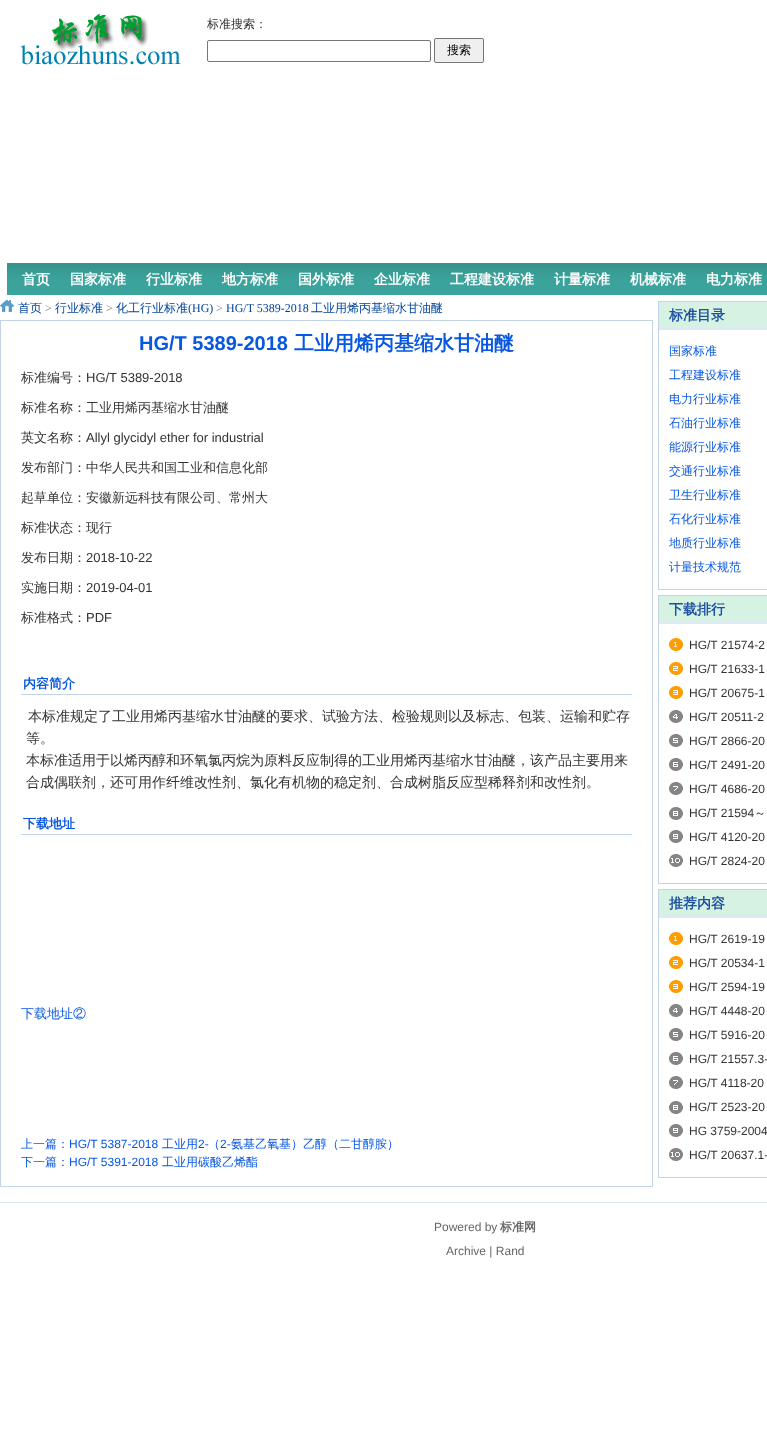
async function draw(canvas) {
  canvas.width = 767
  canvas.height = 1434
  const ctx = canvas.getContext('2d')
  ctx.miterLimit = 4
  ctx.fontKerning = 'normal'
  async function loadImage(src) {
    const img = new Image()
    img.src = src
    await img.decode()
    return img
  }

  ctx.fillStyle = '#fff'
  ctx.fillRect(0, 0, 767, 1434)
  ctx.drawImage(await loadImage('image0.png'), 20, 14, 161, 51)
  ctx.font = '500 12px WenQuanYi Zen Hei'
  ctx.fillStyle = '#333'
  ctx.fillText('标准搜索：', 207, 28)
  ctx.beginPath()
  ctx.roundRect(207.5, 40.5, 223, 21, 1.5)
  ctx.strokeStyle = '#767676'
  ctx.stroke()
  ctx.fillStyle = '#efefef'
  ctx.beginPath()
  ctx.roundRect(434.5, 38.5, 49, 24, 1.5)
  ctx.fill()
  ctx.stroke()
  ctx.fillStyle = '#000'
  ctx.fillText('搜索', 447, 54)
  ctx.drawImage(await loadImage('image1.png'), 7, 263, 760, 32)
  ctx.font = 'bold 14px WenQuanYi Zen Hei'
  ctx.fillStyle = '#fff'
  ctx.fillText('首页', 22, 284)
  ctx.fillText('国家标准', 70, 284)
  ctx.fillText('行业标准', 146, 284)
  ctx.fillText('地方标准', 222, 284)
  ctx.fillText('国外标准', 298, 284)
  ctx.fillText('企业标准', 374, 284)
  ctx.fillText('工程建设标准', 450, 284)
  ctx.fillText('计量标准', 554, 284)
  ctx.fillText('机械标准', 630, 284)
  ctx.fillText('电力标准', 706, 284)
  ctx.drawImage(await loadImage('image2.png'), 0, 300, 14, 12)
  ctx.font = '500 12px WenQuanYi Zen Hei'
  ctx.fillStyle = '#049'
  ctx.fillText('首页', 18, 312)
  ctx.font = '12px Liberation Serif'
  ctx.fillStyle = '#7e7e7e'
  ctx.fillText('>', 45, 312)
  ctx.font = '500 12px WenQuanYi Zen Hei'
  ctx.fillStyle = '#049'
  ctx.fillText('行业标准', 55, 312)
  ctx.font = '12px Liberation Serif'
  ctx.fillStyle = '#7e7e7e'
  ctx.fillText('>', 106, 312)
  ctx.font = '500 12px WenQuanYi Zen Hei'
  ctx.fillStyle = '#049'
  ctx.fillText('化工行业标准', 116, 312)
  ctx.font = '12px Liberation Serif'
  ctx.fillText('(HG)', 188, 312)
  ctx.fillStyle = '#7e7e7e'
  ctx.fillText('>', 216, 312)
  ctx.fillStyle = '#049'
  ctx.fillText('HG/T 5389-2018', 226, 312)
  ctx.font = '500 12px WenQuanYi Zen Hei'
  ctx.fillText('工业用烯丙基缩水甘油醚', 311, 312)
  ctx.strokeStyle = '#c3d4e7'
  ctx.strokeRect(0.5, 320.5, 652, 866)
  ctx.font = 'bold 20px Liberation Sans'
  ctx.fillStyle = '#0757e2'
  ctx.fillText('HG/T 5389-2018', 139, 350)
  ctx.font = 'bold 20px WenQuanYi Zen Hei'
  ctx.fillText('工业用烯丙基缩水甘油醚', 294, 350)
  ctx.font = '500 13px WenQuanYi Zen Hei'
  ctx.fillStyle = '#333'
  ctx.fillText('标准编号：', 21, 382)
  ctx.font = '13px Liberation Sans'
  ctx.fillText('HG/T 5389-2018', 86, 382)
  ctx.font = '500 13px WenQuanYi Zen Hei'
  ctx.fillText('标准名称：工业用烯丙基缩水甘油醚', 21, 412)
  ctx.fillText('英文名称：', 21, 442)
  ctx.font = '13px Liberation Sans'
  ctx.fillText('Allyl glycidyl ether for industrial', 86, 442)
  ctx.font = '500 13px WenQuanYi Zen Hei'
  ctx.fillText('发布部门：中华人民共和国工业和信息化部', 21, 472)
  ctx.fillText('起草单位：安徽新远科技有限公司、常州大', 21, 502)
  ctx.fillText('标准状态：现行', 21, 532)
  ctx.fillText('发布日期：', 21, 562)
  ctx.font = '13px Liberation Sans'
  ctx.fillText('2018-10-22', 86, 562)
  ctx.font = '500 13px WenQuanYi Zen Hei'
  ctx.fillText('实施日期：', 21, 592)
  ctx.font = '13px Liberation Sans'
  ctx.fillText('2019-04-01', 86, 592)
  ctx.font = '500 13px WenQuanYi Zen Hei'
  ctx.fillText('标准格式：', 21, 622)
  ctx.font = '13px Liberation Sans'
  ctx.fillText('PDF', 86, 622)
  ctx.fillStyle = '#c3d4e7'
  ctx.fillRect(21, 694, 611, 1)
  ctx.font = 'bold 13px WenQuanYi Zen Hei'
  ctx.fillStyle = '#0757e2'
  ctx.fillText('内容简介', 23, 688)
  ctx.font = '500 14px WenQuanYi Zen Hei'
  ctx.fillStyle = '#333'
  ctx.fillText('本标准规定了工业用烯丙基缩水甘油醚的要求、试验方法、检验规则以及标志、包装、运输和贮存', 28, 721)
  ctx.fillText('等。', 26, 743)
  ctx.fillText('本标准适用于以烯丙醇和环氧氯丙烷为原料反应制得的工业用烯丙基缩水甘油醚，该产品主要用来', 26, 765)
  ctx.fillText('合成偶联剂，还可用作纤维改性剂、氯化有机物的稳定剂、合成树脂反应型稀释剂和改性剂。', 26, 787)
  ctx.fillStyle = '#c3d4e7'
  ctx.fillRect(21, 834, 611, 1)
  ctx.font = 'bold 13px WenQuanYi Zen Hei'
  ctx.fillStyle = '#0757e2'
  ctx.fillText('下载地址', 23, 828)
  ctx.font = '500 13px WenQuanYi Zen Hei'
  ctx.fillText('下载地址②', 21, 1018)
  ctx.font = '500 12px WenQuanYi Zen Hei'
  ctx.fillText('上一篇：', 21, 1148)
  ctx.font = '12px Liberation Sans'
  ctx.fillText('HG/T 5387-2018', 69, 1148)
  ctx.font = '500 12px WenQuanYi Zen Hei'
  ctx.fillText('工业用', 162, 1148)
  ctx.font = '12px Liberation Sans'
  ctx.fillText('2-', 198, 1148)
  ctx.font = '500 12px WenQuanYi Zen Hei'
  ctx.fillText('（', 208, 1148)
  ctx.font = '12px Liberation Sans'
  ctx.fillText('2-', 220, 1148)
  ctx.font = '500 12px WenQuanYi Zen Hei'
  ctx.fillText('氨基乙氧基）乙醇（二甘醇胺）', 231, 1148)
  ctx.fillText('下一篇：', 21, 1166)
  ctx.font = '12px Liberation Sans'
  ctx.fillText('HG/T 5391-2018', 69, 1166)
  ctx.font = '500 12px WenQuanYi Zen Hei'
  ctx.fillText('工业用碳酸乙烯酯', 162, 1166)
  ctx.fillStyle = '#d6f2e3'
  ctx.fillRect(659, 302, 108, 28)
  ctx.strokeRect(658.5, 301.5, 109, 288)
  ctx.fillStyle = '#dce7f3'
  ctx.fillRect(659, 328, 108, 1)
  ctx.font = 'bold 14px WenQuanYi Zen Hei'
  ctx.fillStyle = '#1e50a2'
  ctx.fillText('标准目录', 669, 320)
  ctx.font = '500 12px WenQuanYi Zen Hei'
  ctx.fillStyle = '#0757e2'
  ctx.fillText('国家标准', 669, 355)
  ctx.fillText('工程建设标准', 669, 379)
  ctx.fillText('电力行业标准', 669, 403)
  ctx.fillText('石油行业标准', 669, 427)
  ctx.fillText('能源行业标准', 669, 451)
  ctx.fillText('交通行业标准', 669, 475)
  ctx.fillText('卫生行业标准', 669, 499)
  ctx.fillText('石化行业标准', 669, 523)
  ctx.fillText('地质行业标准', 669, 547)
  ctx.fillText('计量技术规范', 669, 571)
  ctx.fillStyle = '#d6f2e3'
  ctx.fillRect(659, 596, 108, 28)
  ctx.strokeRect(658.5, 595.5, 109, 288)
  ctx.fillStyle = '#dce7f3'
  ctx.fillRect(659, 622, 108, 1)
  ctx.font = 'bold 14px WenQuanYi Zen Hei'
  ctx.fillStyle = '#1e50a2'
  ctx.fillText('下载排行', 669, 614)
  ctx.drawImage(await loadImage('image3.png'), 669, 638, 14, 229)
  ctx.font = '12px Liberation Sans'
  ctx.fillStyle = '#333'
  ctx.fillText('HG/T 21574-2', 689, 649)
  ctx.fillText('HG/T 21633-1', 689, 673)
  ctx.fillText('HG/T 20675-1', 689, 697)
  ctx.fillText('HG/T 20511-2', 689, 721)
  ctx.fillText('HG/T 2866-20', 689, 745)
  ctx.fillText('HG/T 2491-20', 689, 769)
  ctx.fillText('HG/T 4686-20', 689, 793)
  ctx.fillText('HG/T 21594', 689, 817)
  ctx.font = '500 12px WenQuanYi Zen Hei'
  ctx.fillText('～', 754, 817)
  ctx.font = '12px Liberation Sans'
  ctx.fillText('HG/T 4120-20', 689, 841)
  ctx.fillText('HG/T 2824-20', 689, 865)
  ctx.fillStyle = '#d6f2e3'
  ctx.fillRect(659, 890, 108, 28)
  ctx.strokeRect(658.5, 889.5, 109, 288)
  ctx.fillStyle = '#dce7f3'
  ctx.fillRect(659, 916, 108, 1)
  ctx.font = 'bold 14px WenQuanYi Zen Hei'
  ctx.fillStyle = '#1e50a2'
  ctx.fillText('推荐内容', 669, 908)
  ctx.drawImage(await loadImage('image3.png'), 669, 932, 14, 229)
  ctx.font = '12px Liberation Sans'
  ctx.fillStyle = '#333'
  ctx.fillText('HG/T 2619-19', 689, 943)
  ctx.fillText('HG/T 20534-1', 689, 967)
  ctx.fillText('HG/T 2594-19', 689, 991)
  ctx.fillText('HG/T 4448-20', 689, 1015)
  ctx.fillText('HG/T 5916-20', 689, 1039)
  ctx.fillText('HG/T 21557.3-', 689, 1063)
  ctx.fillText('HG/T 4118-20', 689, 1087)
  ctx.fillText('HG/T 2523-20', 689, 1111)
  ctx.fillText('HG 3759-2004', 689, 1135)
  ctx.fillText('HG/T 20637.1-', 689, 1159)
  ctx.fillStyle = '#dbe7ed'
  ctx.fillRect(0, 1202, 767, 1)
  ctx.fillStyle = '#666'
  ctx.fillText('Powered by', 434, 1231)
  ctx.font = 'bold 12px WenQuanYi Zen Hei'
  ctx.fillText('标准网', 500, 1231)
  ctx.font = '12px Liberation Sans'
  ctx.fillText('Archive | Rand', 446, 1255)
}

draw(document.querySelector('canvas'))
